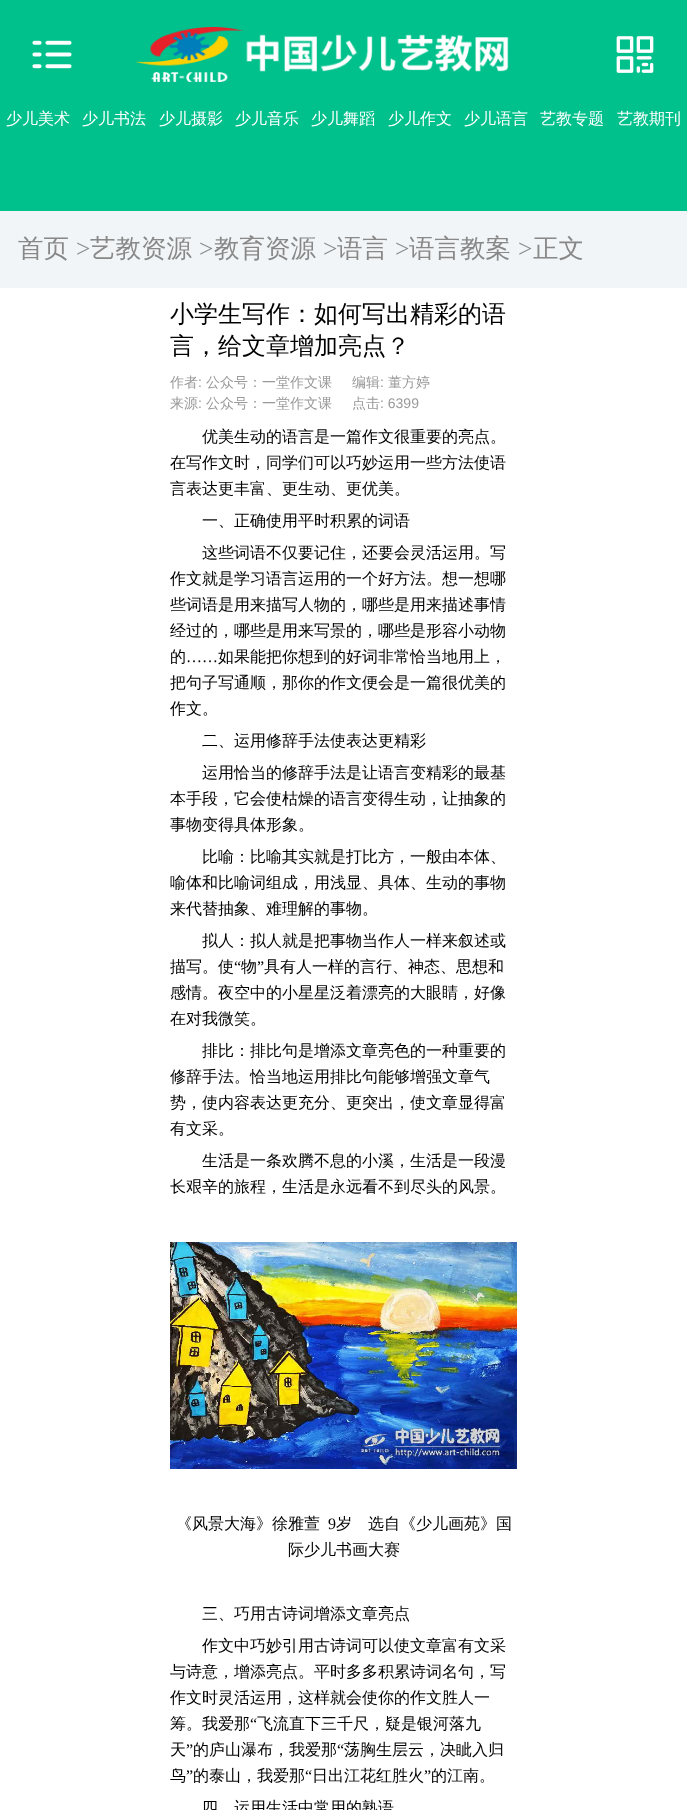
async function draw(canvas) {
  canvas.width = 687
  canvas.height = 1810
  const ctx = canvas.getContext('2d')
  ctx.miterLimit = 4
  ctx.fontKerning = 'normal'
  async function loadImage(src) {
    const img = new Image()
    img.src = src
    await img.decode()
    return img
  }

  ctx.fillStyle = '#fff'
  ctx.fillRect(0, 0, 687, 1810)
  ctx.fillStyle = '#00c18c'
  ctx.fillRect(0, 0, 687, 211)
  ctx.drawImage(await loadImage('image0.png'), 32, 40, 40, 29)
  ctx.drawImage(await loadImage('image1.png'), 135, 27, 374, 55)
  ctx.drawImage(await loadImage('image2.png'), 616, 36, 38, 37)
  ctx.font = '500 16px WenQuanYi Zen Hei'
  ctx.fillStyle = '#fff'
  ctx.fillText('少儿美术', 6, 124)
  ctx.fillText('少儿书法', 82, 124)
  ctx.fillText('少儿摄影', 159, 124)
  ctx.fillText('少儿音乐', 235, 124)
  ctx.fillText('少儿舞蹈', 311, 124)
  ctx.fillText('少儿作文', 388, 124)
  ctx.fillText('少儿语言', 464, 124)
  ctx.fillText('艺教专题', 540, 124)
  ctx.fillText('艺教期刊', 617, 124)
  ctx.fillStyle = '#f1f5f7'
  ctx.fillRect(0, 211, 687, 77)
  ctx.font = '500 25.5px WenQuanYi Zen Hei'
  ctx.fillStyle = '#888'
  ctx.fillText('首页', 18, 257)
  ctx.font = '25.5px Liberation Serif'
  ctx.fillText('>', 76, 257)
  ctx.font = '500 25.5px WenQuanYi Zen Hei'
  ctx.fillText('艺教资源', 90, 257)
  ctx.font = '25.5px Liberation Serif'
  ctx.fillText('>', 199, 257)
  ctx.font = '500 25.5px WenQuanYi Zen Hei'
  ctx.fillText('教育资源', 214, 257)
  ctx.font = '25.5px Liberation Serif'
  ctx.fillText('>', 323, 257)
  ctx.font = '500 25.5px WenQuanYi Zen Hei'
  ctx.fillText('语言', 337, 257)
  ctx.font = '25.5px Liberation Serif'
  ctx.fillText('>', 395, 257)
  ctx.font = '500 25.5px WenQuanYi Zen Hei'
  ctx.fillText('语言教案', 409, 257)
  ctx.font = '25.5px Liberation Serif'
  ctx.fillText('>', 518, 257)
  ctx.font = '500 25.5px WenQuanYi Zen Hei'
  ctx.fillText('正文', 533, 257)
  ctx.font = '500 24px WenQuanYi Zen Hei'
  ctx.fillStyle = '#000'
  ctx.fillText('小学生写作：如何写出精彩的语', 170, 322)
  ctx.fillText('言，给文章增加亮点？', 170, 354)
  ctx.font = '500 14px WenQuanYi Zen Hei'
  ctx.fillStyle = '#999'
  ctx.fillText('作者', 170, 387)
  ctx.font = '14px Liberation Sans'
  ctx.fillText(':', 198, 387)
  ctx.font = '500 14px WenQuanYi Zen Hei'
  ctx.fillText('公众号：一堂作文课', 206, 387)
  ctx.fillText('编辑', 352, 387)
  ctx.font = '14px Liberation Sans'
  ctx.fillText(':', 380, 387)
  ctx.font = '500 14px WenQuanYi Zen Hei'
  ctx.fillText('董方婷', 388, 387)
  ctx.fillText('来源', 170, 408)
  ctx.font = '14px Liberation Sans'
  ctx.fillText(':', 198, 408)
  ctx.font = '500 14px WenQuanYi Zen Hei'
  ctx.fillText('公众号：一堂作文课', 206, 408)
  ctx.fillText('点击', 352, 408)
  ctx.font = '14px Liberation Sans'
  ctx.fillText(': 6399', 380, 408)
  ctx.font = '500 16px WenQuanYi Zen Hei'
  ctx.fillStyle = '#000'
  ctx.fillText('优美生动的语言是一篇作文很重要的亮点。', 202, 442)
  ctx.fillText('在写作文时，同学们可以巧妙运用一些方法使语', 170, 468)
  ctx.fillText('言表达更丰富、更生动、更优美。', 170, 494)
  ctx.fillText('一、正确使用平时积累的词语', 202, 526)
  ctx.fillText('这些词语不仅要记住，还要会灵活运用。写', 202, 558)
  ctx.fillText('作文就是学习语言运用的一个好方法。想一想哪', 170, 584)
  ctx.fillText('些词语是用来描写人物的，哪些是用来描述事情', 170, 610)
  ctx.fillText('经过的，哪些是用来写景的，哪些是形容小动物', 170, 636)
  ctx.fillText('的', 170, 662)
  ctx.font = '16px Liberation Serif'
  ctx.fillText('……', 186, 662)
  ctx.font = '500 16px WenQuanYi Zen Hei'
  ctx.fillText('如果能把你想到的好词非常恰当地用上，', 218, 662)
  ctx.fillText('把句子写通顺，那你的作文便会是一篇很优美的', 170, 688)
  ctx.fillText('作文。', 170, 714)
  ctx.fillText('二、运用修辞手法使表达更精彩', 202, 746)
  ctx.fillText('运用恰当的修辞手法是让语言变精彩的最基', 202, 778)
  ctx.fillText('本手段，它会使枯燥的语言变得生动，让抽象的', 170, 804)
  ctx.fillText('事物变得具体形象。', 170, 830)
  ctx.fillText('比喻：比喻其实就是打比方，一般由本体、', 202, 862)
  ctx.fillText('喻体和比喻词组成，用浅显、具体、生动的事物', 170, 888)
  ctx.fillText('来代替抽象、难理解的事物。', 170, 914)
  ctx.fillText('拟人：拟人就是把事物当作人一样来叙述或', 202, 946)
  ctx.fillText('描写。使', 170, 972)
  ctx.font = '16px Liberation Serif'
  ctx.fillText('“', 234, 972)
  ctx.font = '500 16px WenQuanYi Zen Hei'
  ctx.fillText('物', 241, 972)
  ctx.font = '16px Liberation Serif'
  ctx.fillText('”', 257, 972)
  ctx.font = '500 16px WenQuanYi Zen Hei'
  ctx.fillText('具有人一样的言行、神态、思想和', 264, 972)
  ctx.fillText('感情。夜空中的小星星泛着漂亮的大眼睛，好像', 170, 998)
  ctx.fillText('在对我微笑。', 170, 1024)
  ctx.fillText('排比：排比句是增添文章亮色的一种重要的', 202, 1056)
  ctx.fillText('修辞手法。恰当地运用排比句能够增强文章气', 170, 1082)
  ctx.fillText('势，使内容表达更充分、更突出，使文章显得富', 170, 1108)
  ctx.fillText('有文采。', 170, 1134)
  ctx.fillText('生活是一条欢腾不息的小溪，生活是一段漫', 202, 1166)
  ctx.fillText('长艰辛的旅程，生活是永远看不到尽头的风景。', 170, 1192)
  ctx.drawImage(await loadImage('image3.png'), 170, 1242, 347, 227)
  ctx.fillText('《风景大海》徐雅萱', 176, 1529)
  ctx.font = '16px Liberation Serif'
  ctx.fillText('9', 328, 1529)
  ctx.font = '500 16px WenQuanYi Zen Hei'
  ctx.fillText('岁', 336, 1529)
  ctx.fillText('选自《少儿画苑》国', 368, 1529)
  ctx.fillText('际少儿书画大赛', 288, 1555)
  ctx.fillText('三、巧用古诗词增添文章亮点', 202, 1619)
  ctx.fillText('作文中巧妙引用古诗词可以使文章富有文采', 202, 1651)
  ctx.fillText('与诗意，增添亮点。平时多多积累诗词名句，写', 170, 1677)
  ctx.fillText('作文时灵活运用，这样就会使你的作文胜人一', 170, 1703)
  ctx.fillText('筹。我爱那', 170, 1729)
  ctx.font = '16px Liberation Serif'
  ctx.fillText('“', 250, 1729)
  ctx.font = '500 16px WenQuanYi Zen Hei'
  ctx.fillText('飞流直下三千尺，疑是银河落九', 257, 1729)
  ctx.fillText('天', 170, 1755)
  ctx.font = '16px Liberation Serif'
  ctx.fillText('”', 186, 1755)
  ctx.font = '500 16px WenQuanYi Zen Hei'
  ctx.fillText('的庐山瀑布，我爱那', 193, 1755)
  ctx.font = '16px Liberation Serif'
  ctx.fillText('“', 337, 1755)
  ctx.font = '500 16px WenQuanYi Zen Hei'
  ctx.fillText('荡胸生层云，决眦入归', 344, 1755)
  ctx.fillText('鸟', 170, 1781)
  ctx.font = '16px Liberation Serif'
  ctx.fillText('”', 186, 1781)
  ctx.font = '500 16px WenQuanYi Zen Hei'
  ctx.fillText('的泰山，我爱那', 193, 1781)
  ctx.font = '16px Liberation Serif'
  ctx.fillText('“', 305, 1781)
  ctx.font = '500 16px WenQuanYi Zen Hei'
  ctx.fillText('日出江花红胜火', 312, 1781)
  ctx.font = '16px Liberation Serif'
  ctx.fillText('”', 424, 1781)
  ctx.font = '500 16px WenQuanYi Zen Hei'
  ctx.fillText('的江南。', 431, 1781)
  ctx.fillText('四、运用生活中常用的熟语', 202, 1813)
}

draw(document.querySelector('canvas'))
